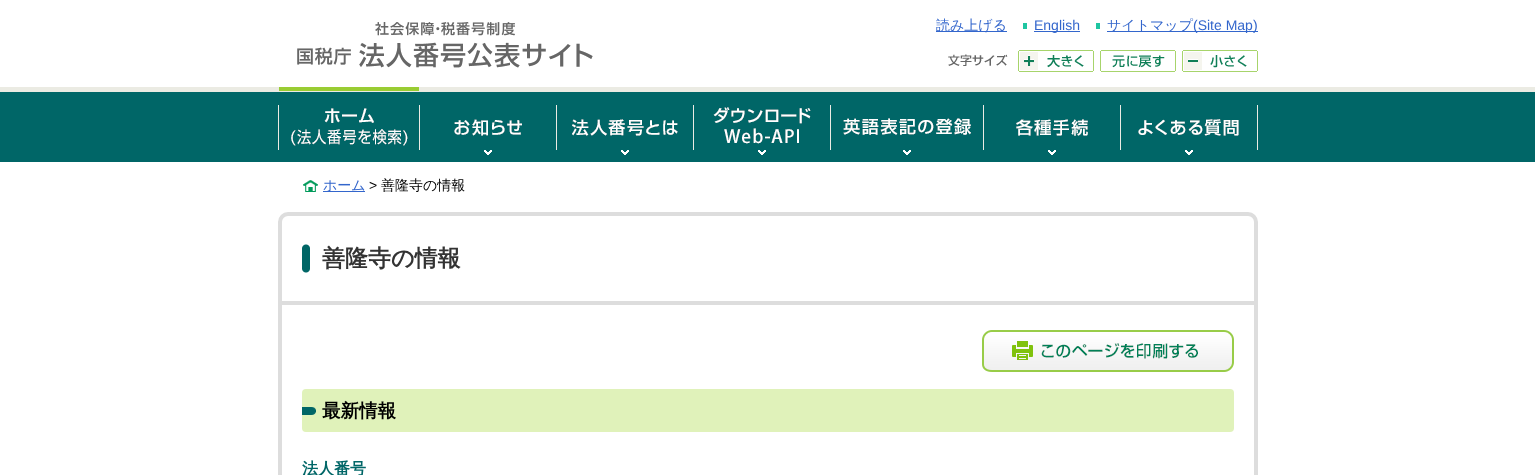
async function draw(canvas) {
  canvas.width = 1535
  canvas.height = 475
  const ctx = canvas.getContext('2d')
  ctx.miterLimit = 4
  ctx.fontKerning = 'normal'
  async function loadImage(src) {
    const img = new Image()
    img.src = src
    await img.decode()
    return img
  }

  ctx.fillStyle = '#fff'
  ctx.fillRect(0, 0, 1535, 475)
  ctx.drawImage(await loadImage('image0.png'), 297, 22, 296, 46)
  ctx.fillStyle = '#36c'
  ctx.fillRect(936, 31, 71, 1)
  ctx.font = '500 14px WenQuanYi Zen Hei'
  ctx.fillText('読み上げる', 936, 30)
  ctx.fillStyle = '#1ec5a1'
  ctx.fillRect(1023, 23, 4, 6)
  ctx.fillStyle = '#36c'
  ctx.fillRect(1034, 31, 46, 1)
  ctx.font = '14px Liberation Sans'
  ctx.fillText('English', 1034, 30)
  ctx.fillStyle = '#1ec5a1'
  ctx.fillRect(1096, 23, 4, 6)
  ctx.fillStyle = '#36c'
  ctx.fillRect(1107, 31, 151, 1)
  ctx.font = '500 14px WenQuanYi Zen Hei'
  ctx.fillText('サイトマップ', 1107, 30)
  ctx.font = '14px Liberation Sans'
  ctx.fillText('(Site Map)', 1193, 30)
  ctx.drawImage(await loadImage('image1.png'), 948, 54, 60, 12)
  ctx.drawImage(await loadImage('image2.png'), 1018, 50, 76, 22)
  ctx.drawImage(await loadImage('image3.png'), 1100, 50, 76, 22)
  ctx.drawImage(await loadImage('image4.png'), 1182, 50, 76, 22)
  ctx.fillStyle = '#006667'
  ctx.fillRect(0, 92, 1535, 70)
  ctx.fillStyle = '#ebebe3'
  ctx.fillRect(0, 87, 1535, 5)
  ctx.fillStyle = '#ebebe4'
  ctx.fillRect(1257, 105, 1, 45)
  ctx.fillRect(278, 105, 1, 45)
  ctx.fillStyle = '#9c3'
  ctx.fillRect(279, 87, 140, 4)
  ctx.drawImage(await loadImage('image5.png'), 279, 105, 129, 45)
  ctx.fillStyle = '#ebebe4'
  ctx.fillRect(419, 105, 1, 45)
  ctx.drawImage(await loadImage('image6.png'), 420, 105, 102, 50)
  ctx.fillRect(556, 105, 1, 45)
  ctx.drawImage(await loadImage('image7.png'), 557, 105, 121, 50)
  ctx.fillRect(693, 105, 1, 45)
  ctx.drawImage(await loadImage('image8.png'), 694, 105, 117, 50)
  ctx.fillRect(830, 105, 1, 45)
  ctx.drawImage(await loadImage('image9.png'), 831, 105, 140, 50)
  ctx.fillRect(983, 105, 1, 45)
  ctx.drawImage(await loadImage('image10.png'), 984, 105, 104, 50)
  ctx.fillRect(1120, 105, 1, 45)
  ctx.drawImage(await loadImage('image11.png'), 1121, 105, 118, 50)
  ctx.drawImage(await loadImage('image12.png'), 303, 180, 15, 12)
  ctx.fillStyle = '#36c'
  ctx.fillRect(323, 191, 42, 1)
  ctx.font = '500 14px WenQuanYi Zen Hei'
  ctx.fillText('ホーム', 323, 190)
  ctx.font = '14px Liberation Sans'
  ctx.fillStyle = '#000'
  ctx.fillText('>', 369, 190)
  ctx.font = '500 14px WenQuanYi Zen Hei'
  ctx.fillText('善隆寺の情報', 381, 190)
  ctx.beginPath()
  ctx.roundRect(280, 214, 976, 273, 8)
  ctx.strokeStyle = '#ddd'
  ctx.lineWidth = 4
  ctx.stroke()
  ctx.drawImage(await loadImage('image13.png'), 302, 244, 8, 29)
  ctx.fillStyle = '#ddd'
  ctx.fillRect(282, 301, 972, 4)
  ctx.font = 'bold 23px WenQuanYi Zen Hei'
  ctx.fillStyle = '#333'
  ctx.fillText('善隆寺の情報', 322, 266)
  ctx.drawImage(await loadImage('image14.png'), 982, 330, 252, 42)
  ctx.fillStyle = '#e0f2ba'
  ctx.beginPath()
  ctx.roundRect(302, 389, 932, 43, 4)
  ctx.fill()
  ctx.drawImage(await loadImage('image15.png'), 302, 407, 14, 8)
  ctx.font = 'bold 18.5px WenQuanYi Zen Hei'
  ctx.fillStyle = '#000'
  ctx.fillText('最新情報', 322, 417)
  ctx.font = 'bold 16px WenQuanYi Zen Hei'
  ctx.fillStyle = '#006667'
  ctx.fillText('法人番号', 302, 474)
}

draw(document.querySelector('canvas'))
